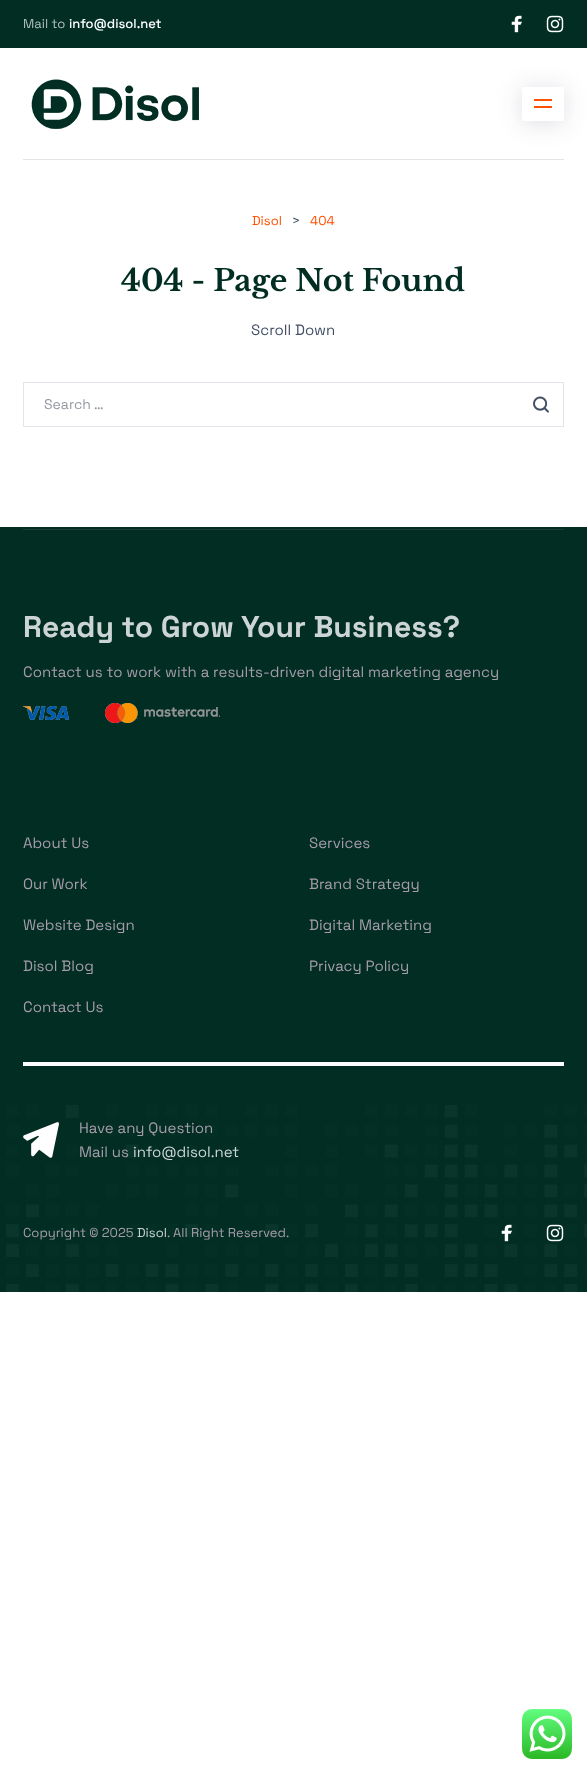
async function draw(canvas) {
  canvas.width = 587
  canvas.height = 1774
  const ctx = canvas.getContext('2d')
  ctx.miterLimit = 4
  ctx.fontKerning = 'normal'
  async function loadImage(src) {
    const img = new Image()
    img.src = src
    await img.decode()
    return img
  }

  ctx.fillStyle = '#fff'
  ctx.fillRect(0, 0, 587, 1774)
  ctx.fillStyle = '#012d22'
  ctx.fillRect(0, 0, 587, 48)
  ctx.font = '13px Space Grotesk'
  ctx.fillStyle = '#b3c0bd'
  ctx.fillText('Mail to', 23, 28)
  ctx.font = '500 13px Space Grotesk'
  ctx.fillStyle = '#fff'
  ctx.fillText('info@disol.net', 69, 28)
  ctx.drawImage(await loadImage('image0.png'), 511, 15, 11, 18)
  ctx.drawImage(await loadImage('image1.png'), 546, 15, 18, 18)
  ctx.drawImage(await loadImage('image2.png'), 31, 79, 168, 50)
  ctx.fillStyle = '#e1e6e4'
  ctx.fillRect(23, 159, 541, 1)
  ctx.save()
  ctx.beginPath()
  ctx.moveTo(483, 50)
  ctx.lineTo(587, 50)
  ctx.lineTo(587, 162)
  ctx.lineTo(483, 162)
  ctx.closePath()
  ctx.moveTo(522, 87)
  ctx.lineTo(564, 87)
  ctx.lineTo(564, 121)
  ctx.lineTo(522, 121)
  ctx.closePath()
  ctx.clip('evenodd')
  ctx.fillStyle = '#111a4526'
  ctx.filter = 'blur(12.5px)'
  ctx.beginPath()
  ctx.rect(522, 89, 42, 34)
  ctx.fill()
  ctx.filter = 'none'
  ctx.restore()
  ctx.fillStyle = '#ff5100'
  ctx.fillRect(534, 99, 18, 2)
  ctx.fillRect(534, 106, 18, 2)
  ctx.font = '13px Space Grotesk'
  ctx.fillText('Disol', 252, 225)
  ctx.fillStyle = '#424f65'
  ctx.fillText('>', 292, 225)
  ctx.fillStyle = '#ff5100'
  ctx.fillText('404', 310, 225)
  ctx.font = 'bold 30px Libre Baskerville'
  ctx.fillStyle = '#012d22'
  ctx.fillText('404 - Page Not Found', 121, 291)
  ctx.font = '15px Space Grotesk'
  ctx.fillStyle = '#424f65'
  ctx.fillText('Scroll Down', 251, 335)
  ctx.strokeStyle = '#e2e6ec'
  ctx.strokeRect(23.5, 382.5, 540, 44)
  ctx.font = '14px Space Grotesk'
  ctx.fillStyle = '#9598a2'
  ctx.fillText('Search …', 44, 409)
  ctx.drawImage(await loadImage('image3.png'), 533, 396, 16, 17)
  ctx.fillStyle = '#012d22'
  ctx.fillRect(0, 527, 587, 765)
  ctx.drawImage(await loadImage('image4.png'), 6, 1105, 581, 187)
  ctx.fillStyle = '#1a3e36'
  ctx.fillRect(23, 529, 541, 1)
  ctx.font = 'bold 30px Space Grotesk'
  ctx.fillStyle = '#ccd5d3'
  ctx.fillText('Ready to Grow Your Business?', 23, 637)
  ctx.font = '15px Space Grotesk'
  ctx.fillStyle = '#a69caa'
  ctx.fillText('Contact us to work with a results-driven digital marketing agency', 23, 677)
  ctx.drawImage(await loadImage('image5.png'), 23, 703, 197, 20)
  ctx.fillText('About Us', 23, 848)
  ctx.fillText('Services', 309, 848)
  ctx.fillText('Our Work', 23, 889)
  ctx.fillText('Brand Strategy', 309, 889)
  ctx.fillText('Website Design', 23, 930)
  ctx.fillText('Digital Marketing', 309, 930)
  ctx.fillText('Disol Blog', 23, 971)
  ctx.fillText('Privacy Policy', 309, 971)
  ctx.fillText('Contact Us', 23, 1012)
  ctx.fillStyle = '#fff'
  ctx.fillRect(23, 1062, 541, 4)
  ctx.drawImage(await loadImage('image6.png'), 23, 1122, 36, 36)
  ctx.fillStyle = '#a69caa'
  ctx.fillText('Have any Question', 79, 1133)
  ctx.fillText('Mail us', 79, 1157)
  ctx.fillStyle = '#ccd5d3'
  ctx.fillText('info@disol.net', 133, 1157)
  ctx.font = '13px Space Grotesk'
  ctx.fillStyle = '#a69caa'
  ctx.fillText('Copyright © 2025', 23, 1237)
  ctx.fillStyle = '#ccd5d3'
  ctx.fillText('Disol', 137, 1237)
  ctx.fillStyle = '#a69caa'
  ctx.fillText('. All Right Reserved.', 167, 1237)
  ctx.drawImage(await loadImage('image7.png'), 501, 1224, 11, 18)
  ctx.drawImage(await loadImage('image1.png'), 546, 1224, 18, 18)
  ctx.drawImage(await loadImage('image8.png'), 522, 1709, 50, 50)
}

draw(document.querySelector('canvas'))
